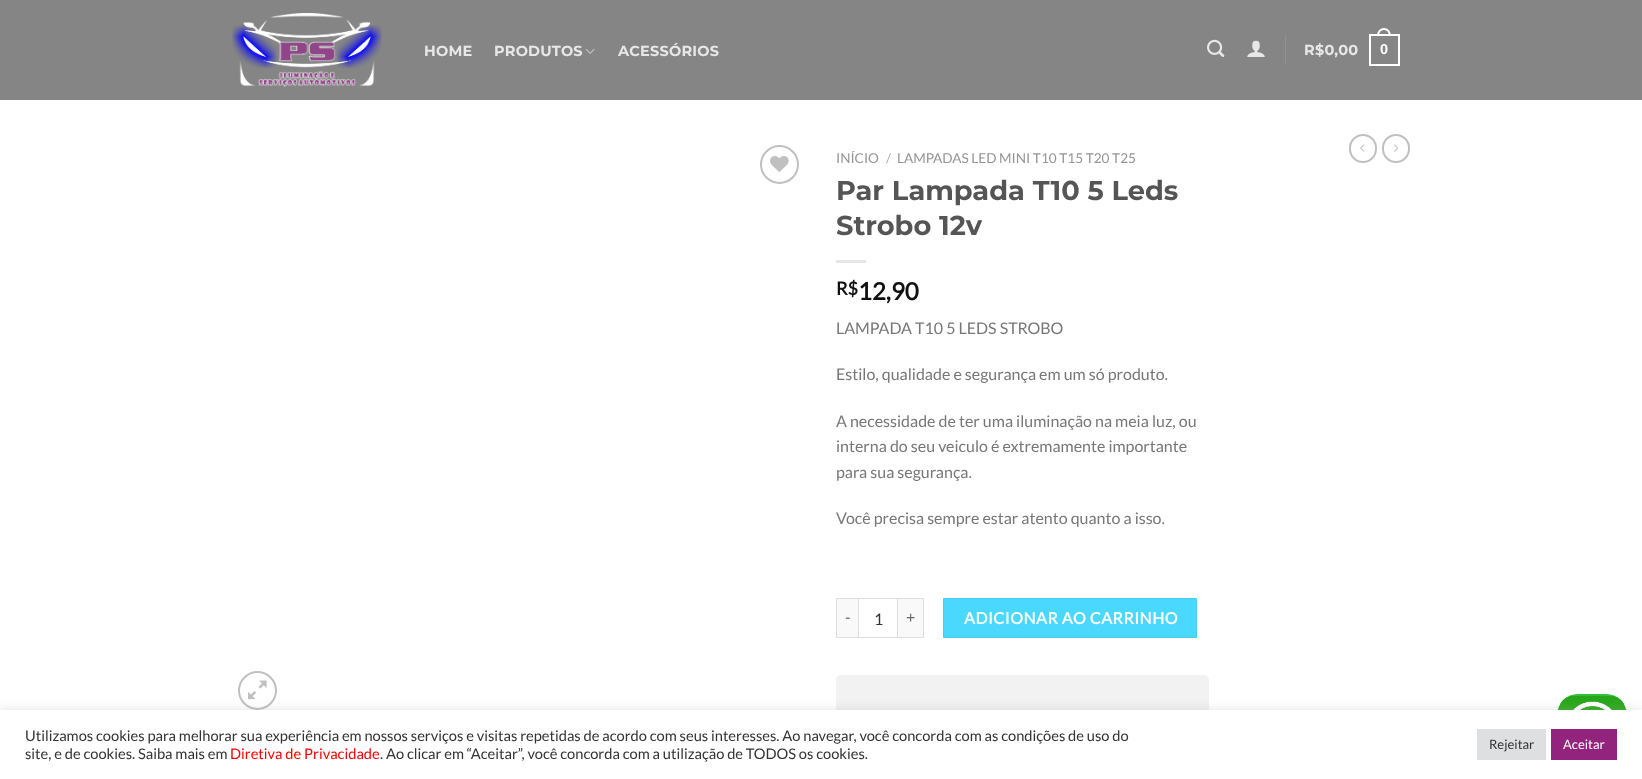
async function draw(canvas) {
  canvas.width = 1642
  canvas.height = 779
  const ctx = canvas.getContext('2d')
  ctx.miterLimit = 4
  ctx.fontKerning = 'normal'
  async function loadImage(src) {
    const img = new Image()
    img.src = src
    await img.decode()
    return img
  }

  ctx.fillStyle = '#fff'
  ctx.fillRect(0, 0, 1642, 779)
  ctx.fillStyle = '#858585'
  ctx.fillRect(0, 0, 1642, 100)
  ctx.drawImage(await loadImage('image0.png'), 232, 13, 150, 74)
  ctx.letterSpacing = '0.25px'
  ctx.font = 'bold 14.5px Montserrat'
  ctx.fillStyle = '#e7e7e7'
  ctx.fillText('HOME', 424, 56)
  ctx.fillText('PRODUTOS', 494, 56)
  ctx.drawImage(await loadImage('image1.png'), 585, 49, 10, 5)
  ctx.fillText('ACESSÓRIOS', 618, 56)
  ctx.drawImage(await loadImage('image2.png'), 1207, 39, 18, 18)
  ctx.drawImage(await loadImage('image3.png'), 1247, 40, 18, 17)
  ctx.fillStyle = '#919191'
  ctx.fillRect(1285, 35, 1, 30)
  ctx.fillStyle = '#e7e7e7'
  ctx.fillText('R$0,00', 1304, 55)
  ctx.strokeStyle = '#fff'
  ctx.lineWidth = 2
  ctx.strokeRect(1370, 35, 29, 30)
  ctx.fillStyle = '#fff'
  ctx.beginPath()
  ctx.moveTo(1384, 28)
  ctx.bezierCurveTo(1388.5, 28, 1391, 32, 1391, 36)
  ctx.lineTo(1377, 36)
  ctx.bezierCurveTo(1377, 32, 1379.5, 28, 1384, 28)
  ctx.closePath()
  ctx.moveTo(1384, 30)
  ctx.bezierCurveTo(1387.5, 30, 1389, 33, 1389, 36)
  ctx.lineTo(1379, 36)
  ctx.bezierCurveTo(1379, 33, 1380.5, 30, 1384, 30)
  ctx.closePath()
  ctx.fill('evenodd')
  ctx.font = 'bold 14.5px Liberation Sans'
  ctx.fillText('0', 1380, 54)
  ctx.beginPath()
  ctx.arc(779.5, 164.5, 18.5, 0, 2 * Math.PI)
  ctx.strokeStyle = '#c0c0c0'
  ctx.stroke()
  ctx.drawImage(await loadImage('image4.png'), 770, 156, 19, 16)
  ctx.beginPath()
  ctx.arc(257.5, 690.5, 18.5, 0, 2 * Math.PI)
  ctx.stroke()
  ctx.drawImage(await loadImage('image5.png'), 248, 680, 19, 20)
  ctx.letterSpacing = '0px'
  ctx.font = '13.6px Lato'
  ctx.fillStyle = '#949494'
  ctx.fillText('INÍCIO', 836, 163)
  ctx.fillStyle = '#b2b2b2'
  ctx.fillText('/', 886, 163)
  ctx.fillStyle = '#949494'
  ctx.fillText('LAMPADAS LED MINI T10 T15 T20 T25', 897, 163)
  ctx.font = 'bold 27.25px Montserrat'
  ctx.fillStyle = '#555'
  ctx.fillText('Par Lampada T10 5 Leds', 836, 200)
  ctx.fillText('Strobo 12v', 836, 235)
  ctx.fillStyle = '#e6e6e6'
  ctx.fillRect(836, 260, 30, 3)
  ctx.font = 'bold 18px Lato'
  ctx.fillStyle = '#111'
  ctx.fillText('R$', 836, 295)
  ctx.font = 'bold 24px Lato'
  ctx.fillText('12,90', 858, 300)
  ctx.font = '16px Lato'
  ctx.fillStyle = '#777'
  ctx.fillText('LAMPADA T10 5 LEDS STROBO', 836, 334)
  ctx.fillText('Estilo, qualidade e segurança em um só produto.', 836, 380)
  ctx.fillText('A necessidade de ter uma iluminação na meia luz, ou', 836, 427)
  ctx.fillText('interna do seu veiculo é extremamente importante', 836, 452)
  ctx.fillText('para sua segurança.', 836, 478)
  ctx.fillText('Você precisa sempre estar atento quanto a isso.', 836, 524)
  ctx.fillStyle = '#f9f9f9'
  ctx.fillRect(837, 599, 21, 38)
  ctx.fillStyle = '#ddd'
  ctx.fillRect(836, 598, 22, 1)
  ctx.fillRect(836, 637, 22, 1)
  ctx.fillRect(836, 598, 1, 40)
  ctx.fillStyle = '#666'
  ctx.fillText('-', 845, 623)
  ctx.strokeStyle = '#ddd'
  ctx.lineWidth = 1
  ctx.strokeRect(858.5, 598.5, 39, 39)
  ctx.fillStyle = '#333'
  ctx.fillText('1', 874, 625)
  ctx.fillStyle = '#f9f9f9'
  ctx.fillRect(898, 599, 25, 38)
  ctx.fillStyle = '#ddd'
  ctx.fillRect(898, 598, 26, 1)
  ctx.fillRect(923, 598, 1, 40)
  ctx.fillRect(898, 637, 26, 1)
  ctx.fillStyle = '#666'
  ctx.fillText('+', 906, 623)
  ctx.fillStyle = '#4ad8ff'
  ctx.beginPath()
  ctx.rect(943.5, 598.5, 253, 39)
  ctx.fill()
  ctx.strokeStyle = '#46cdf2'
  ctx.stroke()
  ctx.letterSpacing = '0.5px'
  ctx.font = 'bold 16px Lato'
  ctx.fillStyle = '#fff'
  ctx.fillText('ADICIONAR AO CARRINHO', 964, 624)
  ctx.fillStyle = '#f2f2f2'
  ctx.beginPath()
  ctx.roundRect(836, 675, 373, 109, 5)
  ctx.fill()
  ctx.beginPath()
  ctx.roundRect(1350, 135, 26, 27, 13)
  ctx.strokeStyle = '#c0c0c0'
  ctx.lineWidth = 2
  ctx.stroke()
  ctx.drawImage(await loadImage('image6.png'), 1360, 144, 5, 8)
  ctx.beginPath()
  ctx.roundRect(1383, 135, 26, 27, 13)
  ctx.stroke()
  ctx.drawImage(await loadImage('image7.png'), 1394, 144, 4, 8)
  ctx.fillStyle = '#30bf39'
  ctx.beginPath()
  ctx.roundRect(1557, 694, 70, 70, 21)
  ctx.fill()
  ctx.drawImage(await loadImage('image8.png'), 1559, 696, 67, 14)
  ctx.fillStyle = '#acabab4d'
  ctx.filter = 'blur(5px)'
  ctx.beginPath()
  ctx.rect(0, 709, 1642, 69)
  ctx.fill()
  ctx.filter = 'none'
  ctx.fillStyle = '#fff'
  ctx.fillRect(0, 710, 1642, 69)
  ctx.letterSpacing = '0px'
  ctx.font = '14.67px Lato'
  ctx.fillStyle = '#333'
  ctx.fillText('Utilizamos cookies para melhorar sua experiência em nossos serviços e visitas repetidas de acordo com seus interesses. Ao navegar, você concorda com as condições de uso do', 25, 741)
  ctx.fillText('site, e de cookies. Saiba mais em', 25, 759)
  ctx.fillStyle = '#f00'
  ctx.fillText('Diretiva de Privacidade', 230, 759)
  ctx.fillStyle = '#333'
  ctx.fillText('. Ao clicar em “Aceitar”, você concorda com a utilização de TODOS os cookies.', 380, 759)
  ctx.fillStyle = '#dedfe0'
  ctx.fillRect(1477, 729, 69, 31)
  ctx.font = '13px Lato'
  ctx.fillStyle = '#333'
  ctx.fillText('Rejeitar', 1489, 749)
  ctx.fillStyle = '#93247d'
  ctx.fillRect(1551, 729, 66, 31)
  ctx.fillStyle = '#fff'
  ctx.fillText('Aceitar', 1563, 749)
}

draw(document.querySelector('canvas'))
